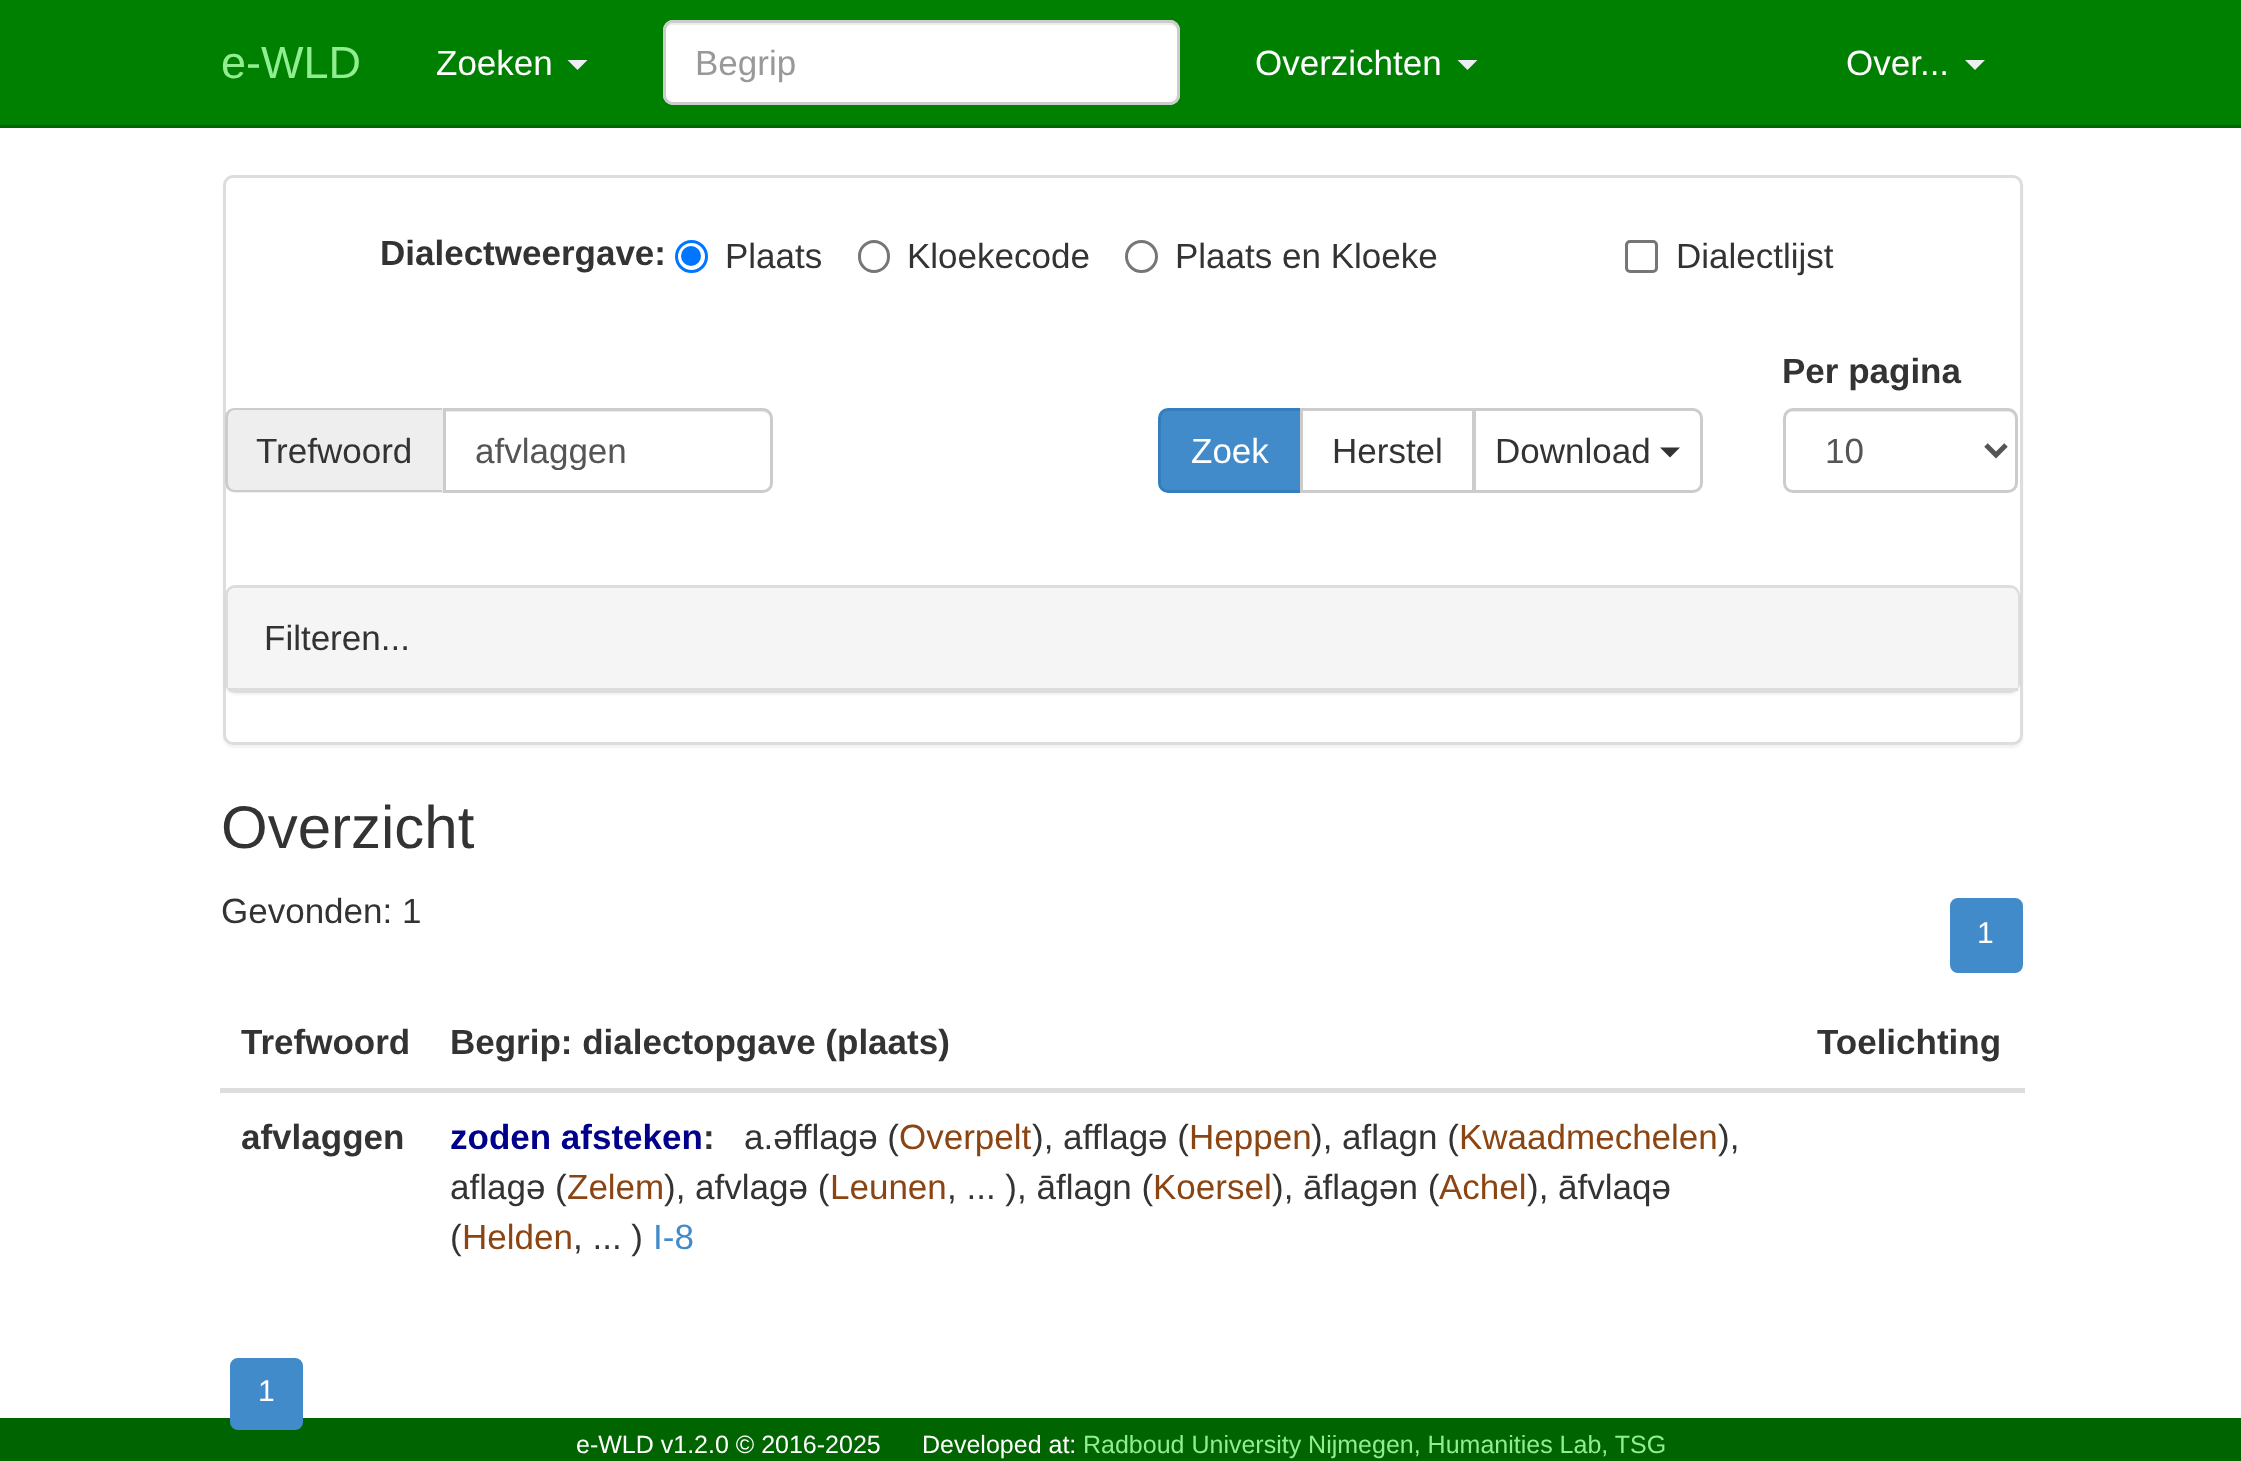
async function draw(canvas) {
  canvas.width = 2241
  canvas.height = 1461
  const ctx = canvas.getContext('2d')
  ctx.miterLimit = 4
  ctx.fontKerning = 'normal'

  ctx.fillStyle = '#fff'
  ctx.fillRect(0, 0, 2241, 1461)
  ctx.fillStyle = '#008000'
  ctx.fillRect(0, 0, 2241, 125)
  ctx.fillStyle = '#006400'
  ctx.fillRect(0, 125, 2241, 3)
  ctx.font = '45px Liberation Sans'
  ctx.fillStyle = '#90ee90'
  ctx.fillText('e-WLD', 221, 78)
  ctx.font = '35px Liberation Sans'
  ctx.fillStyle = '#fff'
  ctx.fillText('Zoeken', 436, 75)
  ctx.fillStyle = '#ecf0f1'
  ctx.beginPath()
  ctx.moveTo(567.5, 60)
  ctx.lineTo(587.5, 60)
  ctx.lineTo(577.5, 70)
  ctx.closePath()
  ctx.fill()
  ctx.fillStyle = '#fff'
  ctx.beginPath()
  ctx.roundRect(663, 20, 517, 85, 10)
  ctx.fill()
  ctx.fillStyle = '#ececec'
  ctx.beginPath()
  ctx.moveTo(672, 25)
  ctx.lineTo(1170, 25)
  ctx.bezierCurveTo(1174, 25, 1178, 28, 1178, 32)
  ctx.lineTo(1178, 31)
  ctx.bezierCurveTo(1178, 27, 1174, 23, 1170, 23)
  ctx.lineTo(673, 23)
  ctx.bezierCurveTo(669, 23, 665, 27, 665, 31)
  ctx.lineTo(665, 32)
  ctx.bezierCurveTo(665, 28, 668, 25, 672, 25)
  ctx.closePath()
  ctx.fill()
  ctx.beginPath()
  ctx.roundRect(664.5, 21.5, 514, 82, 8.5)
  ctx.strokeStyle = '#ccc'
  ctx.lineWidth = 3
  ctx.stroke()
  ctx.fillStyle = '#999'
  ctx.fillText('Begrip', 695, 75)
  ctx.fillStyle = '#fff'
  ctx.fillText('Overzichten', 1255, 75)
  ctx.fillStyle = '#ecf0f1'
  ctx.beginPath()
  ctx.moveTo(1457.5, 60)
  ctx.lineTo(1477.5, 60)
  ctx.lineTo(1467.5, 70)
  ctx.closePath()
  ctx.fill()
  ctx.fillStyle = '#fff'
  ctx.fillText('Over...', 1846, 75)
  ctx.fillStyle = '#ecf0f1'
  ctx.beginPath()
  ctx.moveTo(1965, 60)
  ctx.lineTo(1985, 60)
  ctx.lineTo(1975, 70)
  ctx.closePath()
  ctx.fill()
  ctx.fillStyle = '#0000000d'
  ctx.filter = 'blur(1px)'
  ctx.beginPath()
  ctx.roundRect(223, 178, 1800, 570, 10)
  ctx.fill()
  ctx.filter = 'none'
  ctx.fillStyle = '#fff'
  ctx.beginPath()
  ctx.roundRect(224.5, 176.5, 1797, 567, 8.5)
  ctx.fill()
  ctx.strokeStyle = '#ddd'
  ctx.stroke()
  ctx.font = 'bold 35px Liberation Sans'
  ctx.fillStyle = '#333'
  ctx.fillText('Dialectweergave:', 380, 265)
  ctx.beginPath()
  ctx.arc(691.5, 256.5, 15, 0, 2 * Math.PI)
  ctx.strokeStyle = '#0075ff'
  ctx.stroke()
  ctx.fillStyle = '#0075ff'
  ctx.beginPath()
  ctx.arc(691, 256, 10, 0, 2 * Math.PI)
  ctx.fill()
  ctx.font = '35px Liberation Sans'
  ctx.fillStyle = '#333'
  ctx.fillText('Plaats', 725, 268)
  ctx.beginPath()
  ctx.roundRect(859.5, 241.5, 29, 30, 14.5)
  ctx.strokeStyle = '#767676'
  ctx.stroke()
  ctx.fillText('Kloekecode', 907, 268)
  ctx.beginPath()
  ctx.arc(1141.5, 256.5, 15, 0, 2 * Math.PI)
  ctx.stroke()
  ctx.fillText('Plaats en Kloeke', 1175, 268)
  ctx.beginPath()
  ctx.roundRect(1626.5, 241.5, 30, 30, 3.5)
  ctx.stroke()
  ctx.fillText('Dialectlijst', 1676, 268)
  ctx.fillStyle = '#eee'
  ctx.beginPath()
  ctx.roundRect(225, 408, 218, 85, [10, 0, 0, 10])
  ctx.fill()
  ctx.fillStyle = '#ccc'
  ctx.beginPath()
  ctx.moveTo(235, 408)
  ctx.lineTo(442, 408)
  ctx.lineTo(442, 492)
  ctx.lineTo(235, 492)
  ctx.bezierCurveTo(229, 492, 225, 488, 225, 482)
  ctx.lineTo(225, 418)
  ctx.bezierCurveTo(225, 412, 229, 408, 235, 408)
  ctx.closePath()
  ctx.moveTo(235, 410)
  ctx.lineTo(442, 410)
  ctx.lineTo(442, 490)
  ctx.lineTo(235, 490)
  ctx.bezierCurveTo(231, 490, 228, 487, 228, 482)
  ctx.lineTo(228, 418)
  ctx.bezierCurveTo(228, 413, 231, 410, 235, 410)
  ctx.closePath()
  ctx.fill('evenodd')
  ctx.fillStyle = '#333'
  ctx.fillText('Trefwoord', 256, 463)
  ctx.fillStyle = '#ececec'
  ctx.beginPath()
  ctx.moveTo(445, 412)
  ctx.lineTo(762, 412)
  ctx.bezierCurveTo(767, 412, 770, 416, 770, 420)
  ctx.bezierCurveTo(770, 415, 768, 410, 762, 410)
  ctx.lineTo(445, 410)
  ctx.closePath()
  ctx.fill()
  ctx.beginPath()
  ctx.roundRect(444.5, 409.5, 327, 82, [0, 8.5, 8.5, 0])
  ctx.strokeStyle = '#ccc'
  ctx.stroke()
  ctx.save()
  ctx.beginPath()
  ctx.rect(475, 430, 265, 40)
  ctx.clip()
  ctx.fillStyle = '#555'
  ctx.fillText('afvlaggen', 475, 463)
  ctx.restore()
  ctx.fillStyle = '#428bca'
  ctx.beginPath()
  ctx.roundRect(1159.5, 409.5, 142, 82, [8.5, 0, 0, 8.5])
  ctx.fill()
  ctx.strokeStyle = '#357ebd'
  ctx.stroke()
  ctx.fillStyle = '#fff'
  ctx.fillText('Zoek', 1191, 463)
  ctx.strokeStyle = '#ccc'
  ctx.strokeRect(1301.5, 409.5, 172, 82)
  ctx.fillStyle = '#333'
  ctx.fillText('Herstel', 1332, 463)
  ctx.fillStyle = '#fff'
  ctx.beginPath()
  ctx.roundRect(1474.5, 409.5, 227, 82, [0, 8.5, 8.5, 0])
  ctx.fill()
  ctx.stroke()
  ctx.fillStyle = '#333'
  ctx.fillText('Download', 1495, 463)
  ctx.beginPath()
  ctx.moveTo(1660, 447.5)
  ctx.lineTo(1680, 447.5)
  ctx.lineTo(1670, 457.5)
  ctx.closePath()
  ctx.fill()
  ctx.font = 'bold 35px Liberation Sans'
  ctx.fillText('Per pagina', 1782, 383)
  ctx.fillStyle = '#ececec'
  ctx.beginPath()
  ctx.moveTo(1792, 412)
  ctx.lineTo(2008, 412)
  ctx.bezierCurveTo(2012, 412, 2015, 416, 2015, 420)
  ctx.lineTo(2015, 418)
  ctx.bezierCurveTo(2015, 414, 2011, 410, 2007, 410)
  ctx.lineTo(1793, 410)
  ctx.bezierCurveTo(1789, 410, 1785, 414, 1785, 418)
  ctx.lineTo(1785, 420)
  ctx.bezierCurveTo(1785, 416, 1788, 412, 1792, 412)
  ctx.closePath()
  ctx.fill()
  ctx.beginPath()
  ctx.roundRect(1784.5, 409.5, 232, 82, 8.5)
  ctx.stroke()
  ctx.beginPath()
  ctx.moveTo(1986, 445)
  ctx.lineTo(1996, 455)
  ctx.lineTo(2006, 445)
  ctx.strokeStyle = '#555'
  ctx.lineWidth = 5
  ctx.stroke()
  ctx.font = '35px Liberation Sans'
  ctx.fillStyle = '#555'
  ctx.fillText('10', 1825, 463)
  ctx.fillStyle = '#0000000d'
  ctx.filter = 'blur(1px)'
  ctx.beginPath()
  ctx.roundRect(225, 588, 1795, 107, 10)
  ctx.fill()
  ctx.filter = 'none'
  ctx.fillStyle = '#fff'
  ctx.beginPath()
  ctx.roundRect(226.5, 586.5, 1792, 105, 8.5)
  ctx.fill()
  ctx.strokeStyle = '#ddd'
  ctx.lineWidth = 3
  ctx.stroke()
  ctx.fillStyle = '#f5f5f5'
  ctx.beginPath()
  ctx.roundRect(228, 588, 1790, 102, [8, 8, 0, 0])
  ctx.fill()
  ctx.fillStyle = '#ddd'
  ctx.fillRect(228, 688, 1790, 3)
  ctx.fillStyle = '#333'
  ctx.fillText('Filteren...', 264, 650)
  ctx.font = '60px Liberation Sans'
  ctx.fillText('Overzicht', 221, 848)
  ctx.font = '35px Liberation Sans'
  ctx.fillText('Gevonden: 1', 221, 923)
  ctx.fillStyle = '#428bca'
  ctx.beginPath()
  ctx.roundRect(1951.5, 899.5, 70, 72, 6.5)
  ctx.fill()
  ctx.strokeStyle = '#428bca'
  ctx.stroke()
  ctx.font = '30px Liberation Sans'
  ctx.fillStyle = '#fff'
  ctx.fillText('1', 1977, 943)
  ctx.font = 'bold 35px Liberation Sans'
  ctx.fillStyle = '#333'
  ctx.fillText('Trefwoord', 241, 1054)
  ctx.fillText('Begrip: dialectopgave (plaats)', 450, 1054)
  ctx.fillStyle = '#ddd'
  ctx.fillRect(220, 1088, 1805, 5)
  ctx.fillStyle = '#333'
  ctx.fillText('Toelichting', 1817, 1054)
  ctx.fillText('afvlaggen', 241, 1149)
  ctx.fillStyle = '#00008b'
  ctx.fillText('zoden afsteken', 450, 1149)
  ctx.fillStyle = '#333'
  ctx.fillText(':', 703, 1149)
  ctx.font = '35px Liberation Sans'
  ctx.fillText('a.ǝfflagǝ (', 744, 1149)
  ctx.fillStyle = '#8b4513'
  ctx.fillText('Overpelt', 899, 1149)
  ctx.fillStyle = '#333'
  ctx.fillText('), afflagǝ (', 1032, 1149)
  ctx.fillStyle = '#8b4513'
  ctx.fillText('Heppen', 1189, 1149)
  ctx.fillStyle = '#333'
  ctx.fillText('), aflagn (', 1311, 1149)
  ctx.fillStyle = '#8b4513'
  ctx.fillText('Kwaadmechelen', 1459, 1149)
  ctx.fillStyle = '#333'
  ctx.fillText('),', 1718, 1149)
  ctx.fillText('aflagǝ (', 450, 1199)
  ctx.fillStyle = '#8b4513'
  ctx.fillText('Zelem', 567, 1199)
  ctx.fillStyle = '#333'
  ctx.fillText('), afvlagǝ (', 664, 1199)
  ctx.fillStyle = '#8b4513'
  ctx.fillText('Leunen', 830, 1199)
  ctx.fillStyle = '#333'
  ctx.fillText(', ... ), āflagn (', 947, 1199)
  ctx.fillStyle = '#8b4513'
  ctx.fillText('Koersel', 1153, 1199)
  ctx.fillStyle = '#333'
  ctx.fillText('), āflagǝn (', 1272, 1199)
  ctx.fillStyle = '#8b4513'
  ctx.fillText('Achel', 1439, 1199)
  ctx.fillStyle = '#333'
  ctx.fillText('), āfvlaqǝ', 1527, 1199)
  ctx.fillText('(', 450, 1249)
  ctx.fillStyle = '#8b4513'
  ctx.fillText('Helden', 462, 1249)
  ctx.fillStyle = '#333'
  ctx.fillText(', ... )', 573, 1249)
  ctx.fillStyle = '#428bca'
  ctx.fillText('I-8', 653, 1249)
  ctx.fillStyle = '#006400'
  ctx.fillRect(0, 1418, 2241, 43)
  ctx.fillStyle = '#428bca'
  ctx.beginPath()
  ctx.roundRect(231.5, 1359.5, 70, 69, 6.5)
  ctx.fill()
  ctx.stroke()
  ctx.font = '30px Liberation Sans'
  ctx.fillStyle = '#fff'
  ctx.fillText('1', 258, 1401)
  ctx.font = '25px Liberation Sans'
  ctx.fillText('e-WLD v1.2.0 © 2016-2025', 576, 1453)
  ctx.fillText('Developed at:', 922, 1453)
  ctx.fillStyle = '#90ee90'
  ctx.fillText('Radboud University Nijmegen, Humanities Lab, TSG', 1083, 1453)
}

draw(document.querySelector('canvas'))
